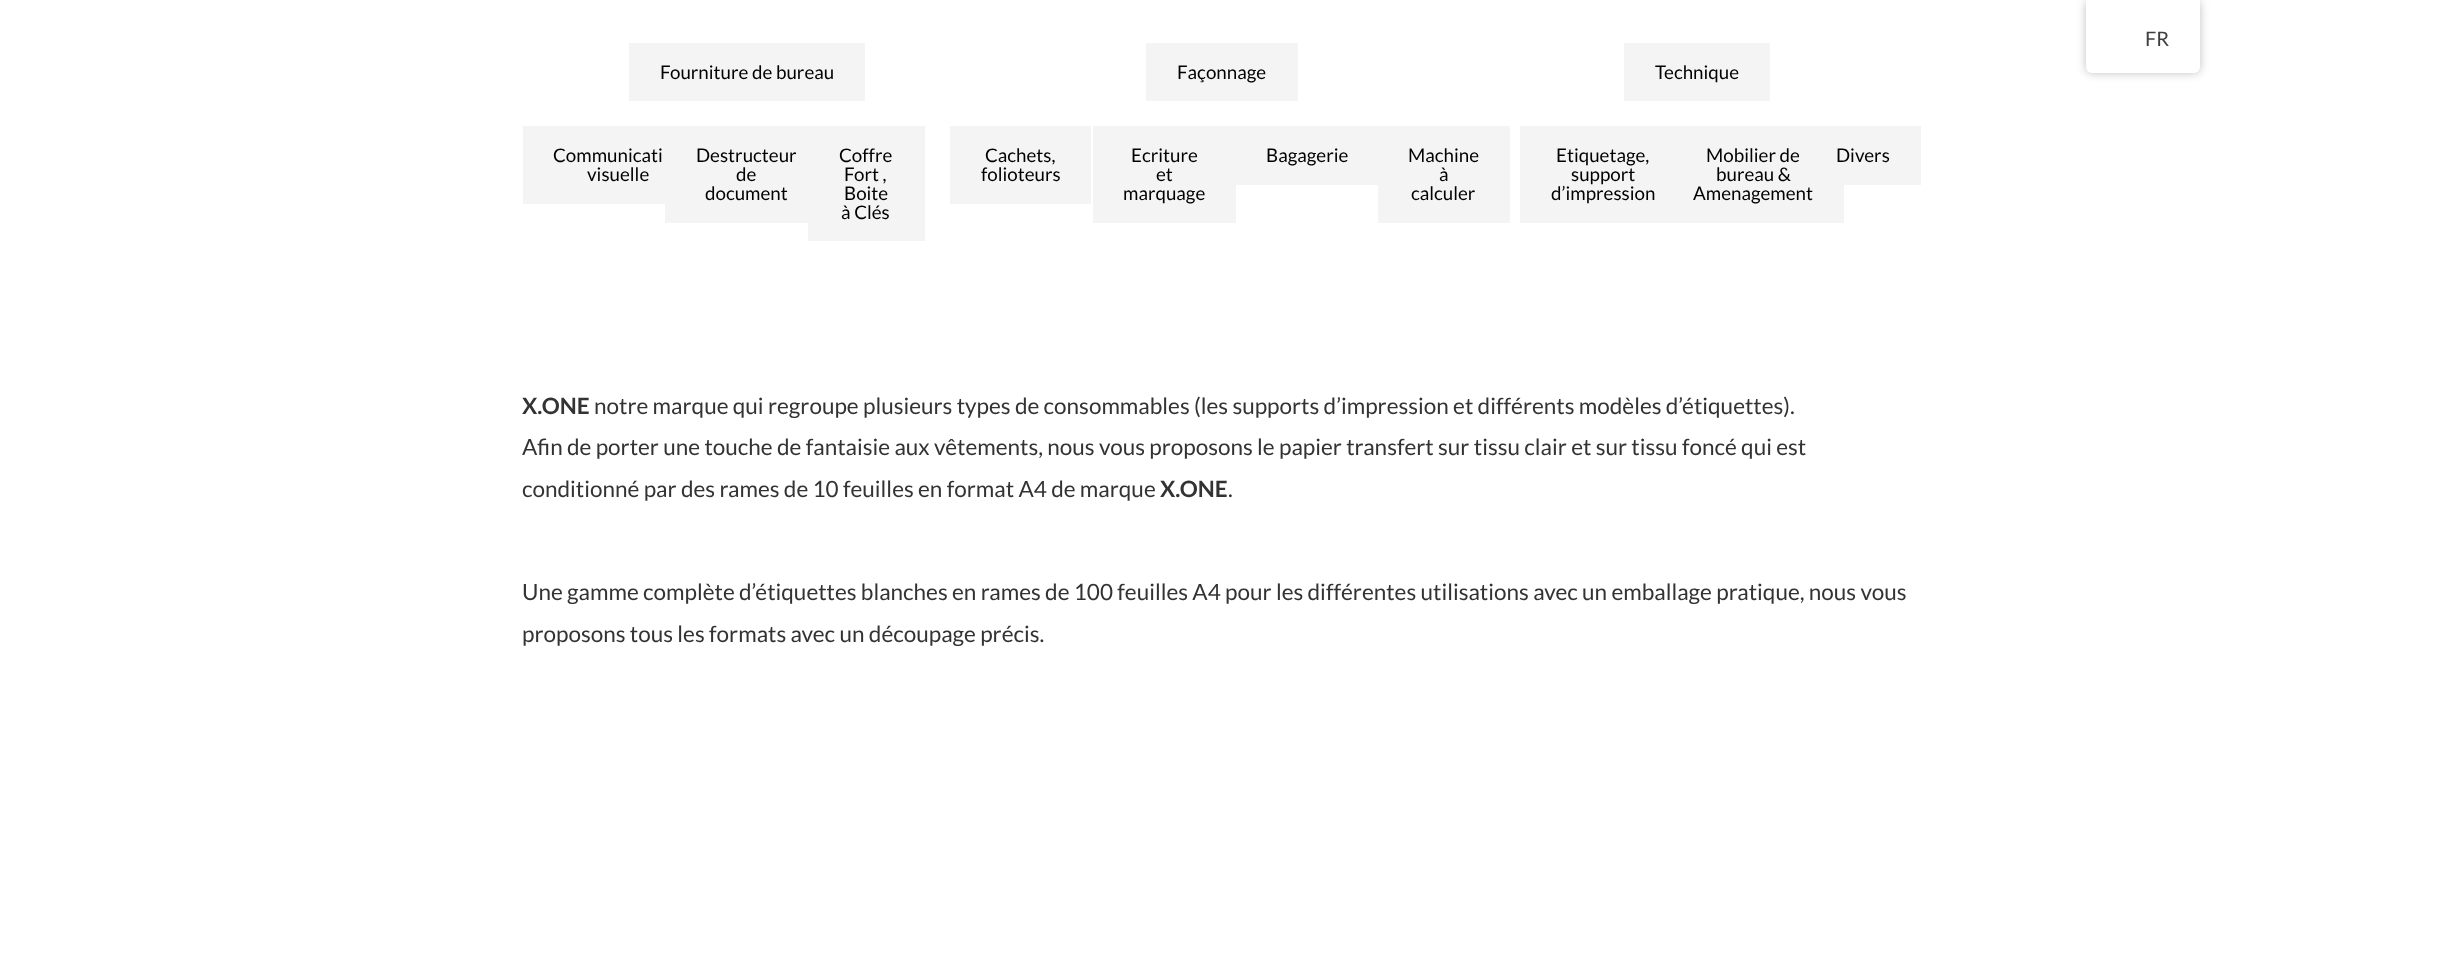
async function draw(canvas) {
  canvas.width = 2443
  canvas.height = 964
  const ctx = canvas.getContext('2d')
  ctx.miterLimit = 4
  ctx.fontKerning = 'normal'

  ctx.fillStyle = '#fff'
  ctx.fillRect(0, 0, 2443, 964)
  ctx.fillStyle = '#00000040'
  ctx.filter = 'blur(5px)'
  ctx.beginPath()
  ctx.roundRect(2086, 0, 114, 73, 6)
  ctx.fill()
  ctx.filter = 'none'
  ctx.fillStyle = '#fff'
  ctx.beginPath()
  ctx.roundRect(2086, 0, 114, 73, [0, 0, 6, 6])
  ctx.fill()
  ctx.font = '20px Lato'
  ctx.fillStyle = '#404040'
  ctx.fillText('FR', 2145, 46)
  ctx.fillStyle = '#f4f4f4'
  ctx.fillRect(629, 43, 236, 58)
  ctx.font = '18.75px Lato'
  ctx.fillStyle = '#000'
  ctx.fillText('Fourniture de bureau', 660, 79)
  ctx.fillStyle = '#f4f4f4'
  ctx.fillRect(1146, 43, 152, 58)
  ctx.fillStyle = '#000'
  ctx.fillText('Façonnage', 1177, 79)
  ctx.fillStyle = '#f4f4f4'
  ctx.fillRect(1624, 43, 146, 58)
  ctx.fillStyle = '#000'
  ctx.fillText('Technique', 1655, 79)
  ctx.fillStyle = '#f4f4f4'
  ctx.fillRect(523, 126, 142, 78)
  ctx.fillStyle = '#000'
  ctx.fillText('Communicati', 553, 162)
  ctx.fillText('visuelle', 587, 181)
  ctx.fillStyle = '#f4f4f4'
  ctx.fillRect(665, 126, 143, 97)
  ctx.fillStyle = '#000'
  ctx.fillText('Destructeur', 696, 162)
  ctx.fillText('de', 736, 181)
  ctx.fillText('document', 705, 200)
  ctx.fillStyle = '#f4f4f4'
  ctx.fillRect(808, 126, 117, 115)
  ctx.fillStyle = '#000'
  ctx.fillText('Coffre', 839, 162)
  ctx.fillText('Fort ,', 844, 181)
  ctx.fillText('Boite', 844, 200)
  ctx.fillText('à Clés', 841, 219)
  ctx.fillStyle = '#f4f4f4'
  ctx.fillRect(950, 126, 141, 78)
  ctx.fillStyle = '#000'
  ctx.fillText('Cachets,', 985, 162)
  ctx.fillText('folioteurs', 981, 181)
  ctx.fillStyle = '#f4f4f4'
  ctx.fillRect(1093, 126, 143, 97)
  ctx.fillStyle = '#000'
  ctx.fillText('Ecriture', 1131, 162)
  ctx.fillText('et', 1156, 181)
  ctx.fillText('marquage', 1123, 200)
  ctx.fillStyle = '#f4f4f4'
  ctx.fillRect(1236, 126, 142, 59)
  ctx.fillStyle = '#000'
  ctx.fillText('Bagagerie', 1266, 162)
  ctx.fillStyle = '#f4f4f4'
  ctx.fillRect(1378, 126, 132, 97)
  ctx.fillStyle = '#000'
  ctx.fillText('Machine', 1408, 162)
  ctx.fillText('à', 1439, 181)
  ctx.fillText('calculer', 1411, 200)
  ctx.fillStyle = '#f4f4f4'
  ctx.fillRect(1520, 126, 324, 97)
  ctx.fillStyle = '#000'
  ctx.fillText('Etiquetage,', 1556, 162)
  ctx.fillText('support', 1571, 181)
  ctx.fillText('d’impression', 1551, 200)
  ctx.fillText('Mobilier de', 1706, 162)
  ctx.fillText('bureau &', 1716, 181)
  ctx.fillText('Amenagement', 1693, 200)
  ctx.fillStyle = '#f4f4f4'
  ctx.fillRect(1844, 126, 77, 59)
  ctx.fillStyle = '#000'
  ctx.fillText('Divers', 1836, 162)
  ctx.font = 'bold 22.5px Lato'
  ctx.fillStyle = '#333'
  ctx.fillText('X.ONE', 522, 414)
  ctx.font = '22.5px Lato'
  ctx.fillText('notre marque qui regroupe plusieurs types de consommables (les supports d’impression et différents modèles d’étiquettes).', 594, 414)
  ctx.fillText('Afin de porter une touche de fantaisie aux vêtements, nous vous proposons le papier transfert sur tissu clair et sur tissu foncé qui est', 522, 455)
  ctx.fillText('conditionné par des rames de 10 feuilles en format A4 de marque', 522, 497)
  ctx.font = 'bold 22.5px Lato'
  ctx.fillText('X.ONE', 1160, 497)
  ctx.font = '22.5px Lato'
  ctx.fillText('.', 1228, 497)
  ctx.fillText('Une gamme complète d’étiquettes blanches en rames de 100 feuilles A4 pour les différentes utilisations avec un emballage pratique, nous vous', 522, 600)
  ctx.fillText('proposons tous les formats avec un découpage précis.', 522, 642)
}

draw(document.querySelector('canvas'))
